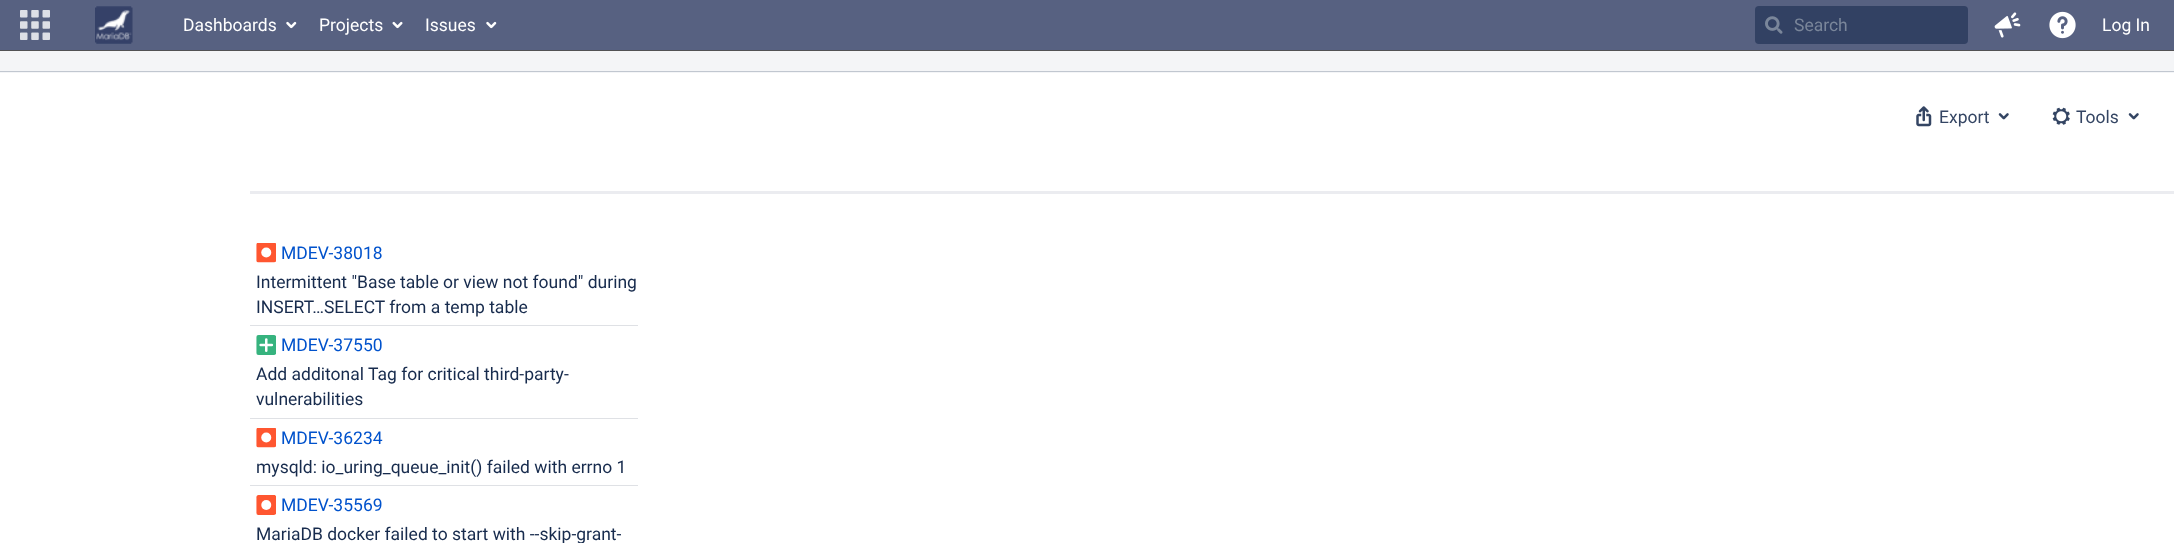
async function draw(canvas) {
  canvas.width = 2174
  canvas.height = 543
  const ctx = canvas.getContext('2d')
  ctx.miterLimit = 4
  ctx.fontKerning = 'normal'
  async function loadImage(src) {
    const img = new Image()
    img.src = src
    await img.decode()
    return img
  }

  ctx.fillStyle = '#f4f5f7'
  ctx.fillRect(0, 0, 2174, 543)
  ctx.fillStyle = '#576181'
  ctx.fillRect(0, 0, 2174, 50)
  ctx.fillStyle = '#525254'
  ctx.fillRect(0, 50, 2174, 1)
  ctx.drawImage(await loadImage('image0.png'), 20, 10, 30, 30)
  ctx.drawImage(await loadImage('image1.png'), 95, 6, 38, 38)
  ctx.font = '17.5px Roboto'
  ctx.fillStyle = '#fff'
  ctx.fillText('Dashboards', 183, 31)
  ctx.drawImage(await loadImage('image2.png'), 286, 21, 11, 8)
  ctx.fillText('Projects', 319, 31)
  ctx.drawImage(await loadImage('image3.png'), 392, 21, 11, 8)
  ctx.fillText('Issues', 425, 31)
  ctx.drawImage(await loadImage('image2.png'), 486, 21, 11, 8)
  ctx.fillStyle = '#324163'
  ctx.beginPath()
  ctx.roundRect(1755, 6, 213, 38, 4)
  ctx.fill()
  ctx.drawImage(await loadImage('image4.png'), 1765, 16, 18, 18)
  ctx.fillStyle = '#7a869a'
  ctx.fillText('Search', 1794, 31)
  ctx.drawImage(await loadImage('image5.png'), 1994, 12, 27, 26)
  ctx.drawImage(await loadImage('image6.png'), 2049, 11, 27, 28)
  ctx.fillStyle = '#fff'
  ctx.fillText('Log In', 2102, 31)
  ctx.fillStyle = '#c1c7d0'
  ctx.fillRect(0, 71, 2174, 1)
  ctx.fillStyle = '#fff'
  ctx.fillRect(0, 73, 2174, 470)
  ctx.drawImage(await loadImage('image7.png'), 1916, 106, 16, 21)
  ctx.fillStyle = '#344563'
  ctx.fillText('Export', 1939, 123)
  ctx.drawImage(await loadImage('image8.png'), 1998, 113, 11, 7)
  ctx.drawImage(await loadImage('image9.png'), 2052, 107, 18, 18)
  ctx.fillText('Tools', 2076, 123)
  ctx.drawImage(await loadImage('image8.png'), 2128, 113, 11, 7)
  ctx.fillStyle = '#ebecf0'
  ctx.fillRect(250, 191, 1924, 3)
  ctx.fillStyle = '#dfe1e5'
  ctx.fillRect(250, 325, 388, 1)
  ctx.drawImage(await loadImage('image10.png'), 256, 243, 20, 20)
  ctx.fillStyle = '#0052cc'
  ctx.fillText('MDEV-38018', 281, 259)
  ctx.fillStyle = '#172b4d'
  ctx.fillText('Intermittent "Base table or view not found" during', 256, 288)
  ctx.fillText('INSERT…SELECT from a temp table', 256, 313)
  ctx.fillStyle = '#dfe1e5'
  ctx.fillRect(250, 418, 388, 1)
  ctx.drawImage(await loadImage('image11.png'), 256, 335, 20, 20)
  ctx.fillStyle = '#0052cc'
  ctx.fillText('MDEV-37550', 281, 351)
  ctx.fillStyle = '#172b4d'
  ctx.fillText('Add additonal Tag for critical third-party-', 256, 380)
  ctx.fillText('vulnerabilities', 256, 405)
  ctx.fillStyle = '#dfe1e5'
  ctx.fillRect(250, 485, 388, 1)
  ctx.drawImage(await loadImage('image12.png'), 256, 428, 20, 20)
  ctx.fillStyle = '#0052cc'
  ctx.fillText('MDEV-36234', 281, 444)
  ctx.fillStyle = '#172b4d'
  ctx.fillText('mysqld: io_uring_queue_init() failed with errno 1', 256, 473)
  ctx.drawImage(await loadImage('image13.png'), 256, 495, 20, 20)
  ctx.fillStyle = '#0052cc'
  ctx.fillText('MDEV-35569', 281, 511)
  ctx.fillStyle = '#172b4d'
  ctx.fillText('MariaDB docker failed to start with --skip-grant-', 256, 540)
}

draw(document.querySelector('canvas'))
